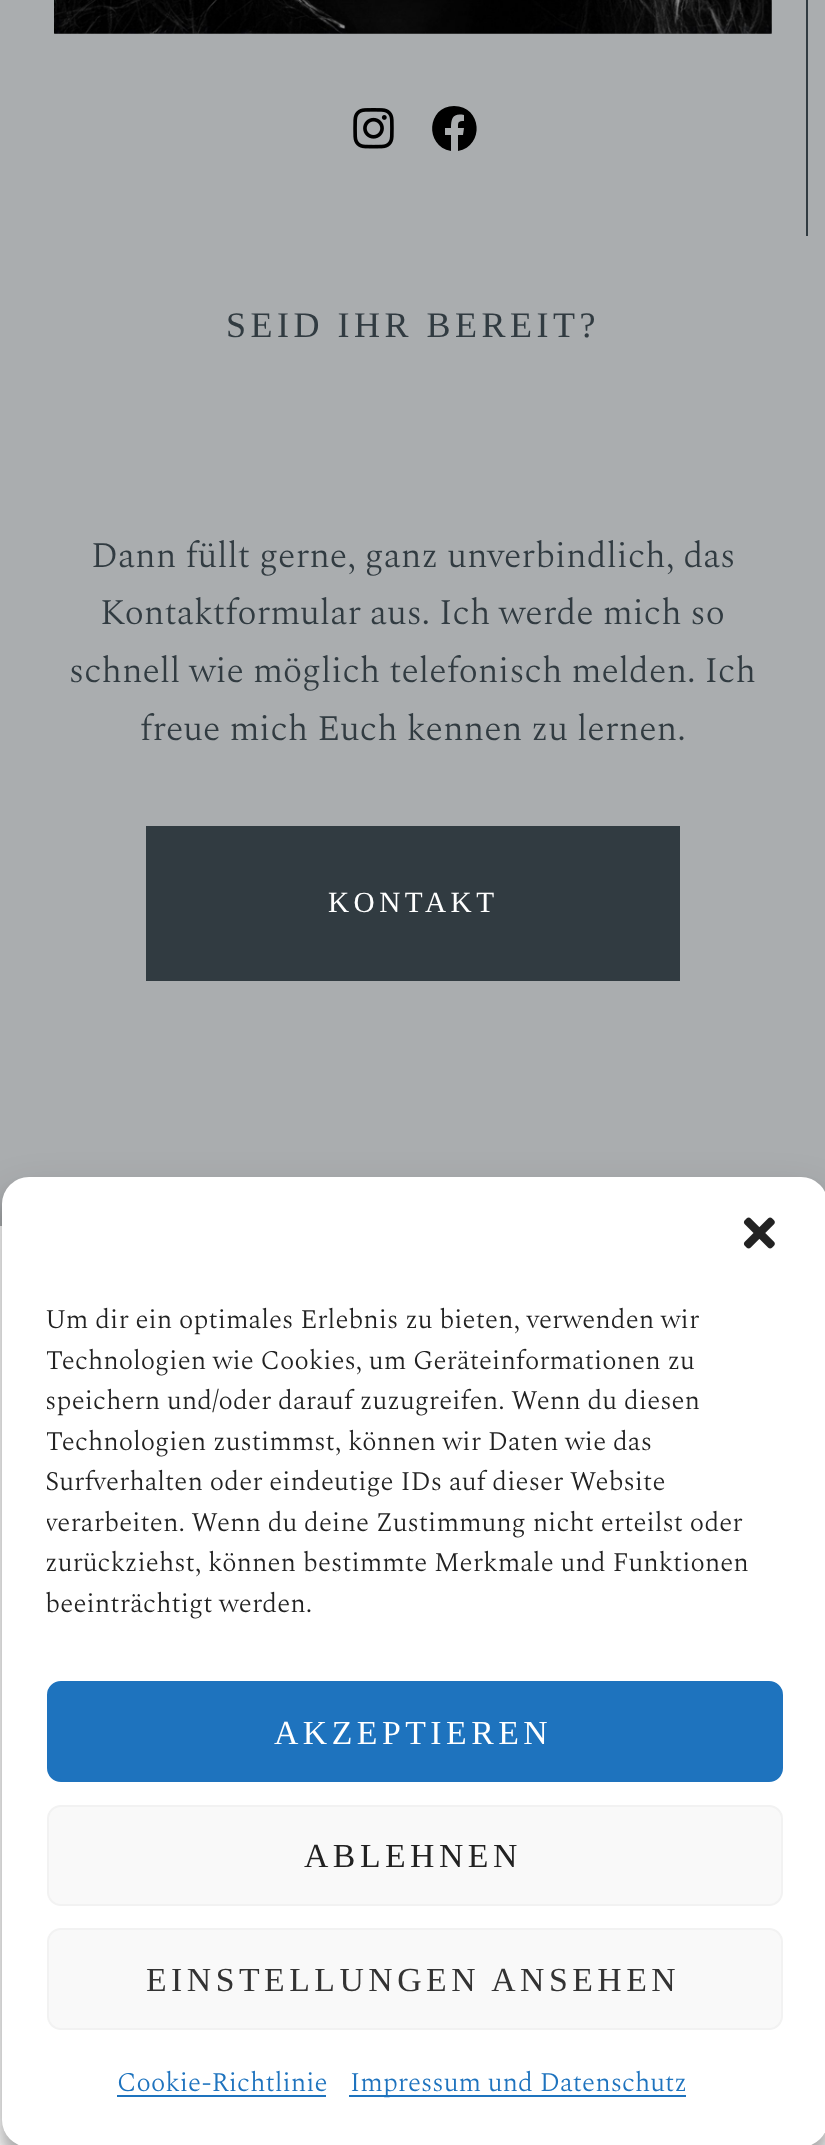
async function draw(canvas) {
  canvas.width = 825
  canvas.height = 2145
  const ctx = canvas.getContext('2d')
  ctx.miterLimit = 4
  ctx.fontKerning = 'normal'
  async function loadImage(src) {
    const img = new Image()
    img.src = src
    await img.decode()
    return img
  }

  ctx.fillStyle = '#fff'
  ctx.fillRect(0, 0, 825, 2145)
  ctx.fillStyle = '#aaadaf'
  ctx.fillRect(0, 0, 825, 1226)
  ctx.drawImage(await loadImage('image0.png'), 54, 0, 718, 34)
  ctx.drawImage(await loadImage('image1.png'), 353, 108, 41, 41)
  ctx.fillStyle = '#000'
  ctx.beginPath()
  ctx.moveTo(454, 106)
  ctx.bezierCurveTo(427, 106, 424, 146, 451, 151)
  ctx.lineTo(451, 135)
  ctx.lineTo(445, 135)
  ctx.lineTo(445, 128)
  ctx.lineTo(451, 128)
  ctx.bezierCurveTo(451, 118, 453, 113, 464, 115)
  ctx.lineTo(464, 121)
  ctx.bezierCurveTo(458, 121, 458, 122, 458, 128)
  ctx.lineTo(464, 128)
  ctx.lineTo(463, 135)
  ctx.lineTo(458, 135)
  ctx.lineTo(458, 151)
  ctx.bezierCurveTo(485, 146, 482, 106, 454, 106)
  ctx.closePath()
  ctx.fill()
  ctx.fillStyle = '#313b41'
  ctx.fillRect(806, 0, 2, 236)
  ctx.letterSpacing = '4.5px'
  ctx.font = '36px Liberation Serif'
  ctx.fillText('SEID IHR BEREIT?', 226, 337)
  ctx.letterSpacing = '0px'
  ctx.font = '300 36px Spectral'
  ctx.fillText('Dann füllt gerne, ganz unverbindlich, das', 91, 567)
  ctx.fillText('Kontaktformular aus. Ich werde mich so', 100, 624)
  ctx.fillText('schnell wie möglich telefonisch melden. Ich', 69, 682)
  ctx.fillText('freue mich Euch kennen zu lernen.', 140, 740)
  ctx.fillRect(146, 826, 534, 155)
  ctx.letterSpacing = '4.5px'
  ctx.font = '29.25px Liberation Serif'
  ctx.fillStyle = '#fff'
  ctx.fillText('KONTAKT', 328, 912)
  ctx.fillStyle = '#0000003b'
  ctx.filter = 'blur(7px)'
  ctx.beginPath()
  ctx.roundRect(2, 1190, 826, 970, 27)
  ctx.fill()
  ctx.filter = 'none'
  ctx.fillStyle = '#00000030'
  ctx.filter = 'blur(22.5px)'
  ctx.beginPath()
  ctx.roundRect(2, 1199, 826, 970, 27)
  ctx.fill()
  ctx.filter = 'none'
  ctx.fillStyle = '#fff'
  ctx.beginPath()
  ctx.roundRect(2, 1177, 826, 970, 27)
  ctx.fill()
  ctx.drawImage(await loadImage('image2.png'), 743, 1217, 32, 32)
  ctx.letterSpacing = '0px'
  ctx.font = '300 27px Spectral'
  ctx.fillStyle = '#222'
  ctx.fillText('Um dir ein optimales Erlebnis zu bieten, verwenden wir', 45, 1328)
  ctx.save()
  ctx.beginPath()
  ctx.rect(47, 1301, 736, 335)
  ctx.clip()
  ctx.fillText('Technologien wie Cookies, um Geräteinformationen zu', 45, 1369)
  ctx.fillText('speichern und/oder darauf zuzugreifen. Wenn du diesen', 45, 1409)
  ctx.fillText('Technologien zustimmst, können wir Daten wie das', 45, 1450)
  ctx.fillText('Surfverhalten oder eindeutige IDs auf dieser Website', 45, 1490)
  ctx.fillText('verarbeiten. Wenn du deine Zustimmung nicht erteilst oder', 45, 1531)
  ctx.restore()
  ctx.fillText('zurückziehst, können bestimmte Merkmale und Funktionen', 45, 1571)
  ctx.fillText('beeinträchtigt werden.', 45, 1612)
  ctx.fillStyle = '#1e73be'
  ctx.beginPath()
  ctx.roundRect(48, 1682, 734, 99, 13)
  ctx.fill()
  ctx.strokeStyle = '#1e73be'
  ctx.lineWidth = 2
  ctx.stroke()
  ctx.letterSpacing = '4.5px'
  ctx.font = '33.75px Liberation Serif'
  ctx.fillStyle = '#fff'
  ctx.fillText('AKZEPTIEREN', 274, 1744)
  ctx.fillStyle = '#f9f9f9'
  ctx.beginPath()
  ctx.roundRect(48, 1806, 734, 99, 13)
  ctx.fill()
  ctx.strokeStyle = '#f2f2f2'
  ctx.stroke()
  ctx.fillStyle = '#222'
  ctx.fillText('ABLEHNEN', 304, 1867)
  ctx.fillStyle = '#f9f9f9'
  ctx.beginPath()
  ctx.roundRect(48, 1929, 734, 100, 13)
  ctx.fill()
  ctx.stroke()
  ctx.fillStyle = '#333'
  ctx.fillText('EINSTELLUNGEN ANSEHEN', 146, 1991)
  ctx.letterSpacing = '0px'
  ctx.font = '300 27px Spectral'
  ctx.fillStyle = '#1e73be'
  ctx.fillText('Cookie-Richtlinie', 117, 2091)
  ctx.fillRect(117, 2095, 209, 2)
  ctx.fillRect(349, 2095, 337, 2)
  ctx.fillText('Impressum und Datenschutz', 350, 2091)
}

draw(document.querySelector('canvas'))
